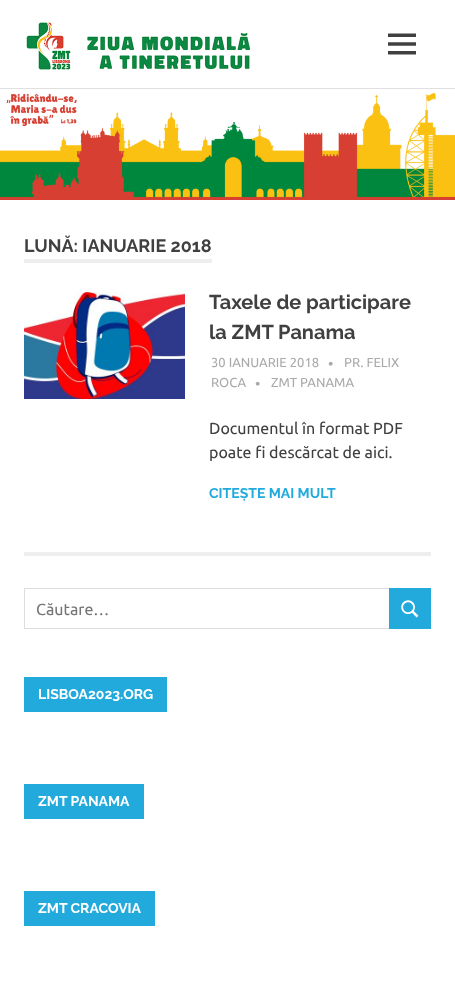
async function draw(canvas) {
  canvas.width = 455
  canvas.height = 994
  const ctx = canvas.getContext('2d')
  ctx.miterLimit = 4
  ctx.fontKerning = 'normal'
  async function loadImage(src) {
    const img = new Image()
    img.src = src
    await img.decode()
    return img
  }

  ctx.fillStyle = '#fff'
  ctx.fillRect(0, 0, 455, 994)
  ctx.fillStyle = '#e0e0e0'
  ctx.fillRect(0, 88, 455, 1)
  ctx.drawImage(await loadImage('image0.png'), 26, 22, 225, 48)
  ctx.drawImage(await loadImage('image1.png'), 388, 33, 28, 22)
  ctx.drawImage(await loadImage('image2.png'), 0, 92, 455, 108)
  ctx.fillStyle = '#eee'
  ctx.fillRect(24, 259, 188, 4)
  ctx.font = 'bold 18px Raleway'
  ctx.fillStyle = '#404040'
  ctx.fillText('LUNĂ: IANUARIE 2018', 24, 252)
  ctx.drawImage(await loadImage('image3.png'), 24, 292, 161, 107)
  ctx.font = 'bold 20px Raleway'
  ctx.fillText('Taxele de participare', 209, 309)
  ctx.fillText('la ZMT Panama', 209, 339)
  ctx.font = '13px Ubuntu'
  ctx.fillStyle = '#aaa'
  ctx.fillText('30 IANUARIE 2018', 211, 367)
  ctx.font = '15px Ubuntu'
  ctx.fillText('•', 328, 369)
  ctx.font = '13px Ubuntu'
  ctx.fillText('PR. FELIX', 344, 367)
  ctx.fillText('ROCA', 211, 387)
  ctx.font = '15px Ubuntu'
  ctx.fillText('•', 255, 389)
  ctx.font = '13px Ubuntu'
  ctx.fillText('ZMT PANAMA', 271, 387)
  ctx.font = '16px Ubuntu'
  ctx.fillStyle = '#404040'
  ctx.fillText('Documentul în format PDF', 209, 434)
  ctx.fillText('poate fi descărcat de aici.', 209, 458)
  ctx.font = 'bold 14px Raleway'
  ctx.fillStyle = '#2ad'
  ctx.fillText('CITEȘTE MAI MULT', 209, 498)
  ctx.fillStyle = '#eee'
  ctx.fillRect(24, 552, 407, 4)
  ctx.strokeStyle = '#ddd'
  ctx.strokeRect(24.5, 588.5, 365, 40)
  ctx.font = '16px Ubuntu'
  ctx.fillStyle = '#757575'
  ctx.fillText('Căutare…', 36, 615)
  ctx.fillStyle = '#2ad'
  ctx.fillRect(389, 588, 42, 41)
  ctx.drawImage(await loadImage('image4.png'), 401, 600, 18, 18)
  ctx.fillRect(24, 677, 143, 35)
  ctx.font = 'bold 14px Raleway'
  ctx.fillStyle = '#fff'
  ctx.fillText('LISBOA2023.ORG', 38, 699)
  ctx.fillStyle = '#2ad'
  ctx.fillRect(24, 784, 120, 35)
  ctx.fillStyle = '#fff'
  ctx.fillText('ZMT PANAMA', 38, 806)
  ctx.fillStyle = '#2ad'
  ctx.fillRect(24, 891, 131, 35)
  ctx.fillStyle = '#fff'
  ctx.fillText('ZMT CRACOVIA', 38, 913)
}

draw(document.querySelector('canvas'))
